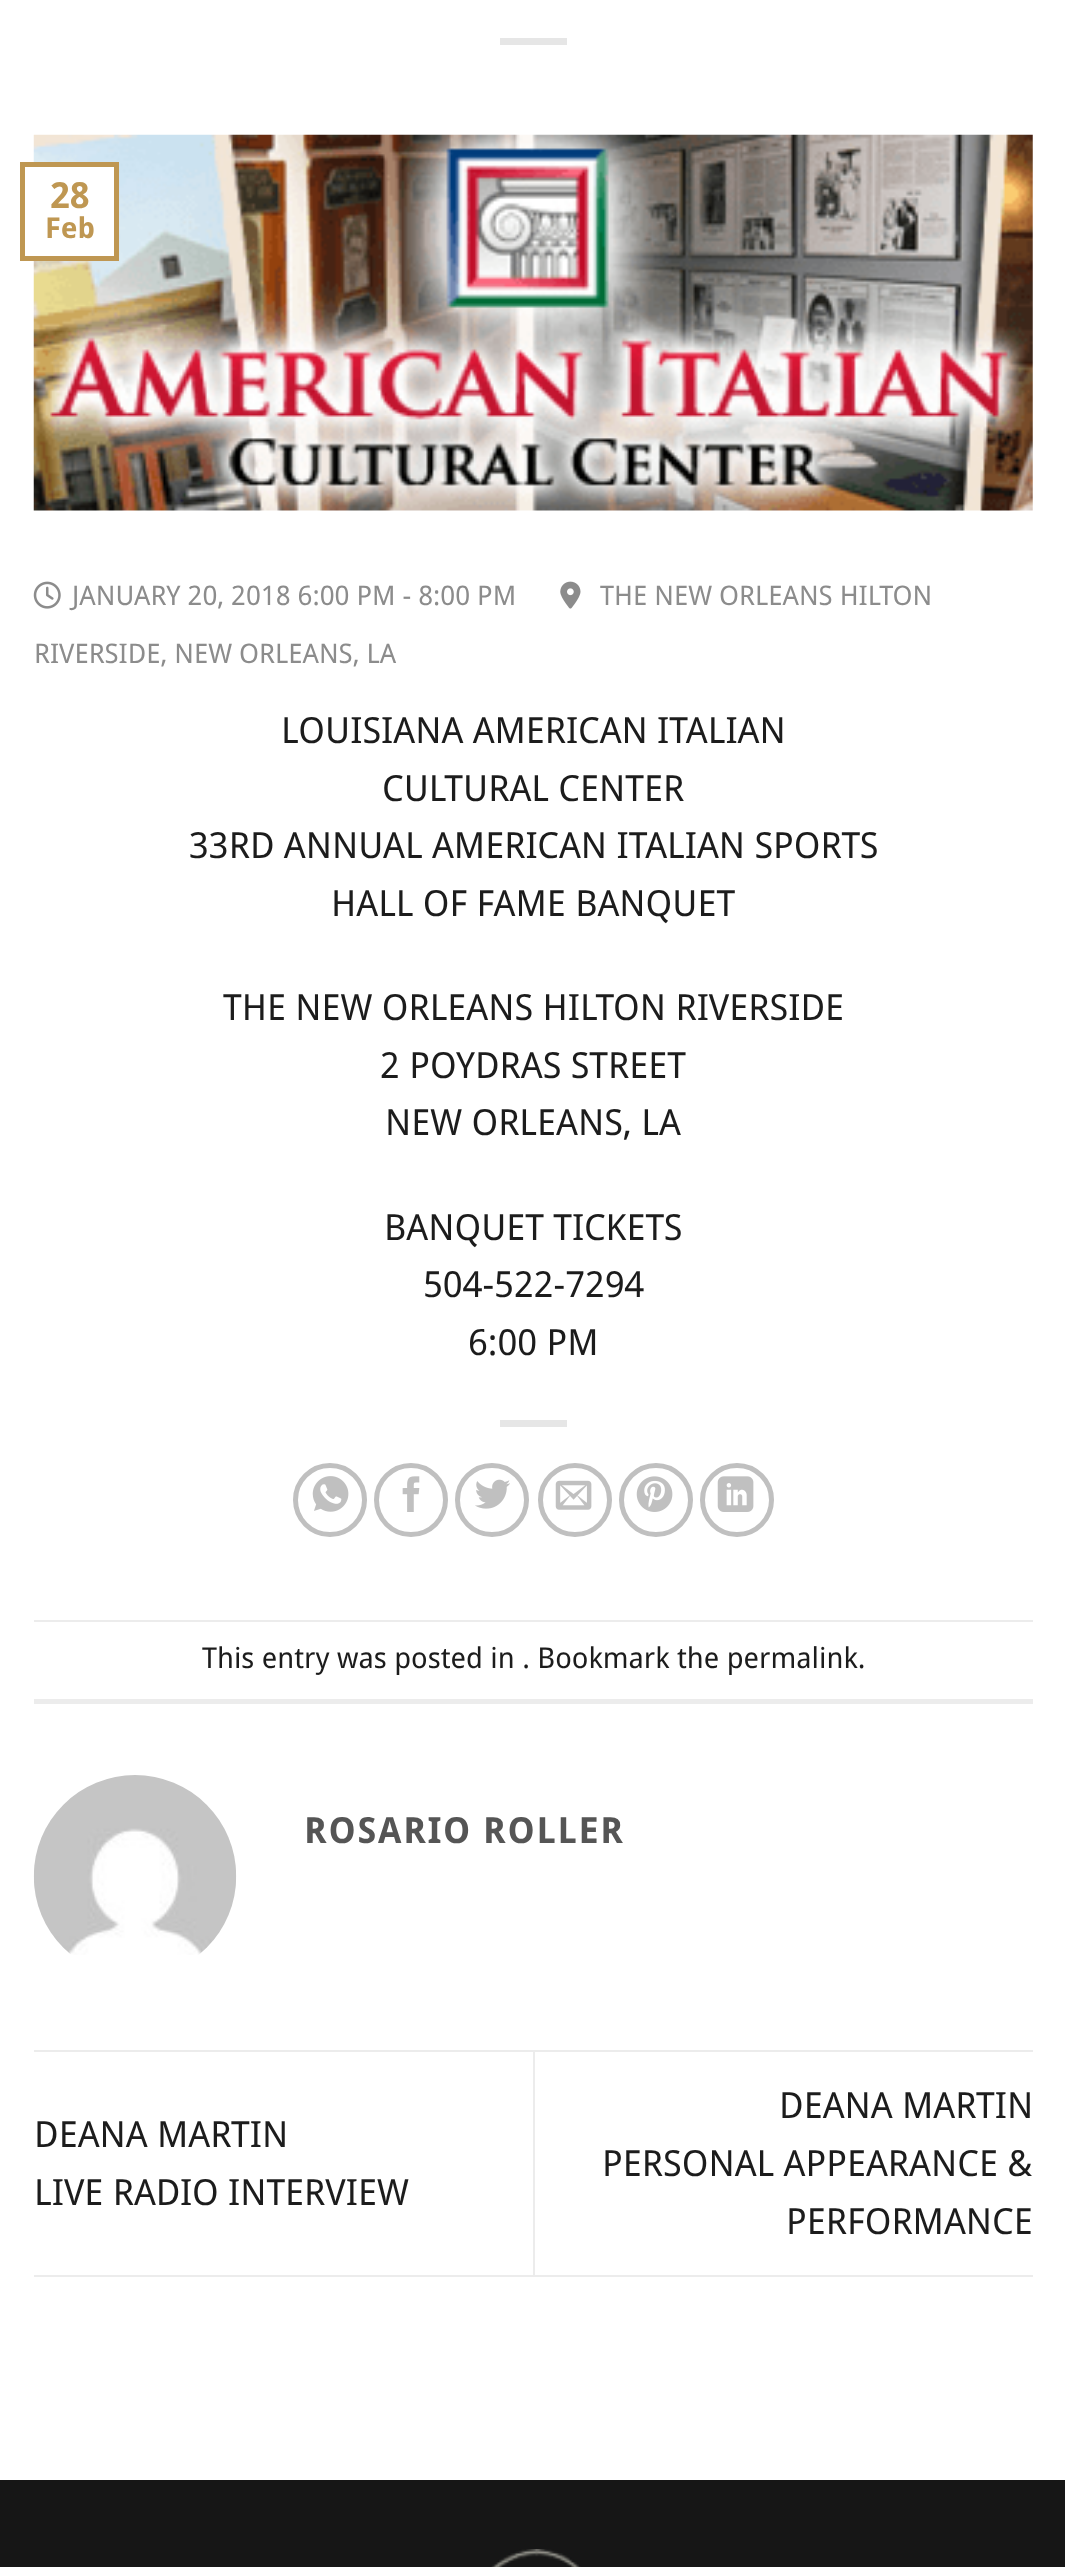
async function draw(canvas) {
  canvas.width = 1065
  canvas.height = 2567
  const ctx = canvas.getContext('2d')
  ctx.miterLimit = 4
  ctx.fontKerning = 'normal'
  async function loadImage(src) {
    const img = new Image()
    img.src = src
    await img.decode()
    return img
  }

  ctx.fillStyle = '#fff'
  ctx.fillRect(0, 0, 1065, 2567)
  ctx.fillStyle = '#e6e6e6'
  ctx.fillRect(500, 38, 67, 7)
  ctx.drawImage(await loadImage('image0.png'), 33, 134, 1000, 377)
  ctx.fillStyle = '#fff'
  ctx.fillRect(33, 167, 81, 89)
  ctx.strokeStyle = '#bf9752'
  ctx.lineWidth = 5
  ctx.strokeRect(22.5, 164.5, 94, 94)
  ctx.font = 'bold 36px Droid Sans'
  ctx.fillStyle = '#bf9752'
  ctx.fillText('28', 50, 208)
  ctx.font = 'bold 28.8px Droid Sans'
  ctx.fillText('Feb', 45, 238)
  ctx.drawImage(await loadImage('image1.png'), 560, 581, 21, 28)
  ctx.font = '27px Droid Sans'
  ctx.fillStyle = '#8c8c8c'
  ctx.fillText('THE NEW ORLEANS HILTON', 600, 605)
  ctx.fillText('RIVERSIDE, NEW ORLEANS, LA', 34, 663)
  ctx.drawImage(await loadImage('image2.png'), 33, 581, 28, 28)
  ctx.fillText('JANUARY 20, 2018 6:00 PM - 8:00 PM', 72, 605)
  ctx.font = '36px Droid Sans'
  ctx.fillStyle = '#1c1c1c'
  ctx.fillText('LOUISIANA AMERICAN ITALIAN', 281, 743)
  ctx.fillText('CULTURAL CENTER', 382, 801)
  ctx.fillText('33RD ANNUAL AMERICAN ITALIAN SPORTS', 189, 858)
  ctx.fillText('HALL OF FAME BANQUET', 331, 916)
  ctx.fillText('THE NEW ORLEANS HILTON RIVERSIDE', 223, 1020)
  ctx.fillText('2 POYDRAS STREET', 380, 1078)
  ctx.fillText('NEW ORLEANS, LA', 385, 1135)
  ctx.fillText('BANQUET TICKETS', 384, 1240)
  ctx.fillText('504-522-7294', 423, 1297)
  ctx.fillText('6:00 PM', 468, 1355)
  ctx.fillStyle = '#e6e6e6'
  ctx.fillRect(500, 1420, 67, 7)
  ctx.beginPath()
  ctx.arc(330, 1500, 34.5, 0, 2 * Math.PI)
  ctx.strokeStyle = '#c0c0c0'
  ctx.stroke()
  ctx.drawImage(await loadImage('image3.png'), 312, 1476, 37, 36)
  ctx.beginPath()
  ctx.arc(411, 1500, 34.5, 0, 2 * Math.PI)
  ctx.stroke()
  ctx.drawImage(await loadImage('image4.png'), 402, 1476, 18, 36)
  ctx.beginPath()
  ctx.arc(492, 1500, 34.5, 0, 2 * Math.PI)
  ctx.stroke()
  ctx.drawImage(await loadImage('image5.png'), 475, 1479, 35, 30)
  ctx.beginPath()
  ctx.arc(575, 1500, 34.5, 0, 2 * Math.PI)
  ctx.stroke()
  ctx.drawImage(await loadImage('image6.png'), 555, 1480, 37, 30)
  ctx.beginPath()
  ctx.arc(656, 1500, 34.5, 0, 2 * Math.PI)
  ctx.stroke()
  ctx.drawImage(await loadImage('image7.png'), 636, 1476, 37, 36)
  ctx.beginPath()
  ctx.arc(737, 1500, 34.5, 0, 2 * Math.PI)
  ctx.stroke()
  ctx.drawImage(await loadImage('image8.png'), 717, 1476, 37, 36)
  ctx.fillStyle = '#ececec'
  ctx.fillRect(34, 1620, 999, 2)
  ctx.fillRect(34, 1699, 999, 5)
  ctx.font = '28.8px Droid Sans'
  ctx.fillStyle = '#1c1c1c'
  ctx.fillText('This entry was posted in . Bookmark the permalink.', 202, 1668)
  ctx.drawImage(await loadImage('image9.png'), 33, 1775, 204, 180)
  ctx.letterSpacing = '1.75px'
  ctx.font = 'bold 36px Droid Sans'
  ctx.fillStyle = '#555'
  ctx.fillText('ROSARIO ROLLER', 304, 1843)
  ctx.fillStyle = '#ececec'
  ctx.fillRect(34, 2050, 999, 2)
  ctx.fillRect(34, 2275, 999, 2)
  ctx.letterSpacing = '0px'
  ctx.font = '36px Droid Sans'
  ctx.fillStyle = '#1c1c1c'
  ctx.fillText('DEANA MARTIN', 34, 2147)
  ctx.fillText('LIVE RADIO INTERVIEW', 34, 2205)
  ctx.fillStyle = '#ececec'
  ctx.fillRect(533, 2052, 2, 223)
  ctx.fillStyle = '#1c1c1c'
  ctx.fillText('DEANA MARTIN', 779, 2118)
  ctx.fillText('PERSONAL APPEARANCE &', 602, 2176)
  ctx.fillText('PERFORMANCE', 786, 2234)
  ctx.fillStyle = '#161616'
  ctx.fillRect(0, 2480, 1065, 87)
  ctx.drawImage(await loadImage('image10.png'), 491, 2549, 90, 18)
}

draw(document.querySelector('canvas'))
